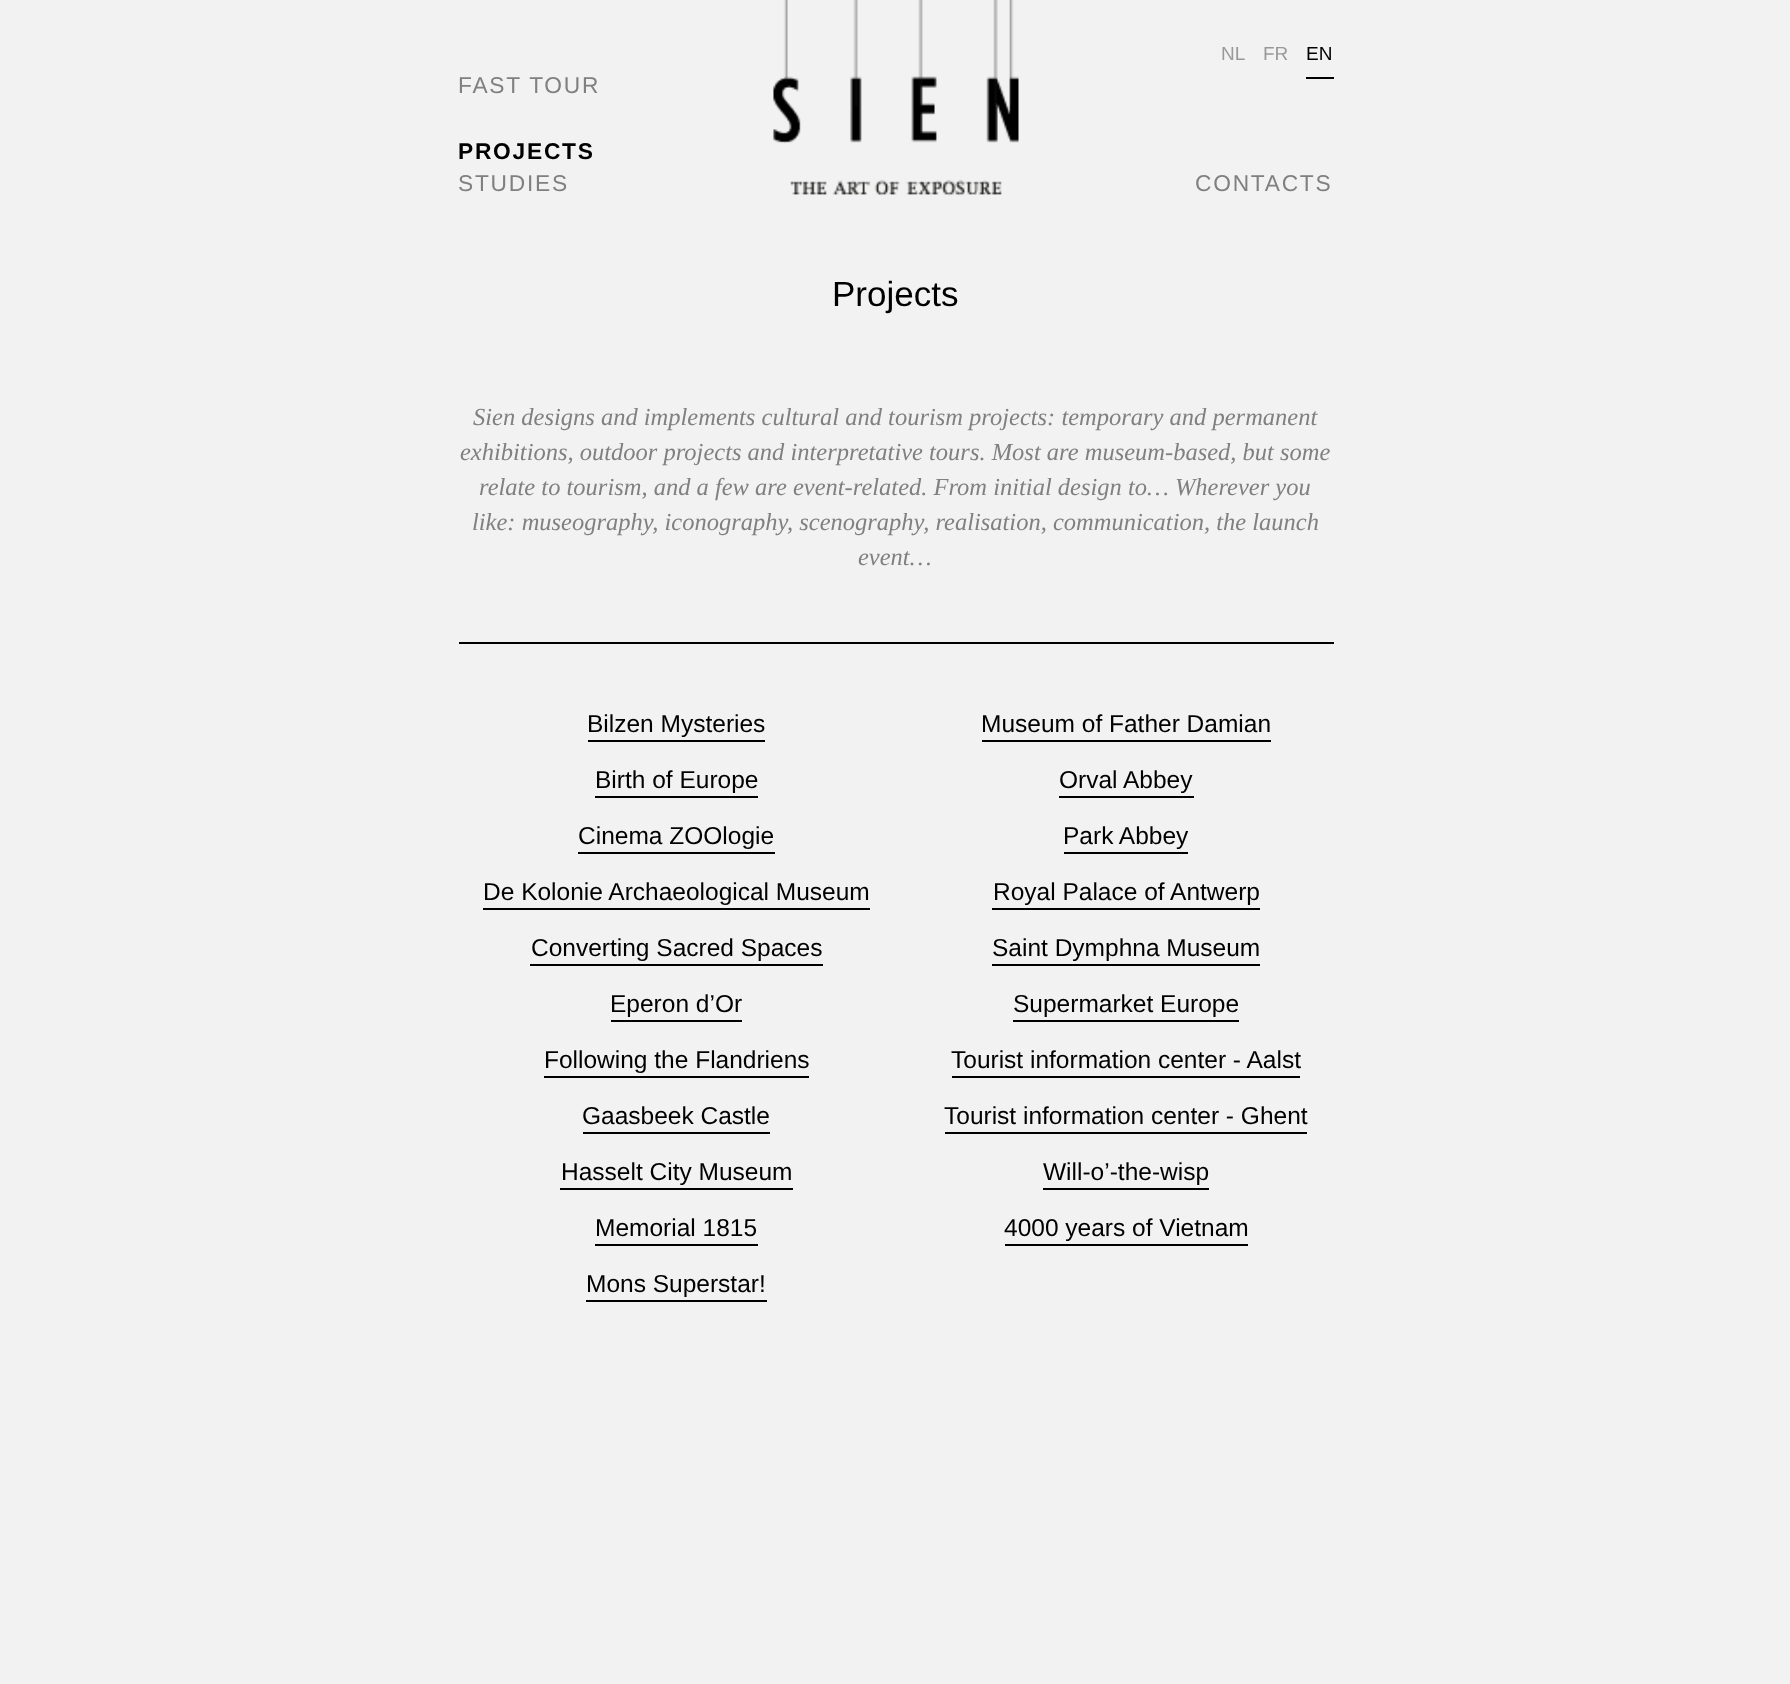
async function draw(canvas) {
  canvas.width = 1790
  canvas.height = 1684
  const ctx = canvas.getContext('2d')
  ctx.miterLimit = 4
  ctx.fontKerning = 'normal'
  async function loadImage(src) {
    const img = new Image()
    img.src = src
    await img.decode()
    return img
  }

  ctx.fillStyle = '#f2f2f2'
  ctx.fillRect(0, 0, 1790, 1684)
  ctx.drawImage(await loadImage('image0.png'), 773, 0, 246, 196)
  ctx.font = '19px Liberation Sans'
  ctx.fillStyle = '#999'
  ctx.fillText('NL', 1221, 60)
  ctx.fillText('FR', 1263, 60)
  ctx.fillStyle = '#000'
  ctx.fillRect(1306, 77, 28, 2)
  ctx.fillText('EN', 1306, 60)
  ctx.letterSpacing = '1.75px'
  ctx.font = '22.75px Liberation Sans'
  ctx.fillStyle = '#808080'
  ctx.fillText('FAST TOUR', 458, 93)
  ctx.font = 'bold 22.75px Liberation Sans'
  ctx.fillStyle = '#000'
  ctx.fillText('PROJECTS', 458, 159)
  ctx.font = '22.75px Liberation Sans'
  ctx.fillStyle = '#808080'
  ctx.fillText('STUDIES', 458, 191)
  ctx.fillText('CONTACTS', 1195, 191)
  ctx.letterSpacing = '0px'
  ctx.font = '35px Liberation Sans'
  ctx.fillStyle = '#000'
  ctx.fillText('Projects', 832, 306)
  ctx.font = 'italic 24.5px Liberation Serif'
  ctx.fillStyle = '#808080'
  ctx.fillText('Sien designs and implements cultural and tourism projects: temporary and permanent', 473, 425)
  ctx.fillText('exhibitions, outdoor projects and interpretative tours. Most are museum-based, but some', 460, 460)
  ctx.fillText('relate to tourism, and a few are event-related. From initial design to… Wherever you', 479, 495)
  ctx.fillText('like: museography, iconography, scenography, realisation, communication, the launch', 472, 530)
  ctx.fillText('event…', 858, 565)
  ctx.fillStyle = '#000'
  ctx.fillRect(459, 642, 875, 2)
  ctx.fillRect(588, 740, 177, 2)
  ctx.font = '24.5px Liberation Sans'
  ctx.fillText('Bilzen Mysteries', 587, 732)
  ctx.fillRect(982, 740, 289, 2)
  ctx.fillText('Museum of Father Damian', 981, 732)
  ctx.fillRect(595, 796, 163, 2)
  ctx.fillText('Birth of Europe', 595, 788)
  ctx.fillRect(1059, 796, 135, 2)
  ctx.fillText('Orval Abbey', 1059, 788)
  ctx.fillRect(578, 852, 197, 2)
  ctx.fillText('Cinema ZOOlogie', 578, 844)
  ctx.fillRect(1064, 852, 124, 2)
  ctx.fillText('Park Abbey', 1063, 844)
  ctx.fillRect(483, 908, 387, 2)
  ctx.fillText('De Kolonie Archaeological Museum', 483, 900)
  ctx.fillRect(992, 908, 268, 2)
  ctx.fillText('Royal Palace of Antwerp', 993, 900)
  ctx.fillRect(530, 964, 293, 2)
  ctx.fillText('Converting Sacred Spaces', 531, 956)
  ctx.fillRect(992, 964, 268, 2)
  ctx.fillText('Saint Dymphna Museum', 992, 956)
  ctx.fillRect(611, 1020, 131, 2)
  ctx.fillText('Eperon d’Or', 610, 1012)
  ctx.fillRect(1013, 1020, 226, 2)
  ctx.fillText('Supermarket Europe', 1013, 1012)
  ctx.fillRect(544, 1076, 265, 2)
  ctx.fillText('Following the Flandriens', 544, 1068)
  ctx.fillRect(952, 1076, 348, 2)
  ctx.fillText('Tourist information center - Aalst', 951, 1068)
  ctx.fillRect(583, 1132, 187, 2)
  ctx.fillText('Gaasbeek Castle', 582, 1124)
  ctx.fillRect(945, 1132, 362, 2)
  ctx.fillText('Tourist information center - Ghent', 944, 1124)
  ctx.fillRect(560, 1188, 233, 2)
  ctx.fillText('Hasselt City Museum', 561, 1180)
  ctx.fillRect(1043, 1188, 166, 2)
  ctx.fillText('Will-o’-the-wisp', 1043, 1180)
  ctx.fillRect(595, 1244, 163, 2)
  ctx.fillText('Memorial 1815', 595, 1236)
  ctx.fillRect(1005, 1244, 243, 2)
  ctx.fillText('4000 years of Vietnam', 1004, 1236)
  ctx.fillRect(586, 1300, 181, 2)
  ctx.fillText('Mons Superstar!', 586, 1292)
}

draw(document.querySelector('canvas'))
